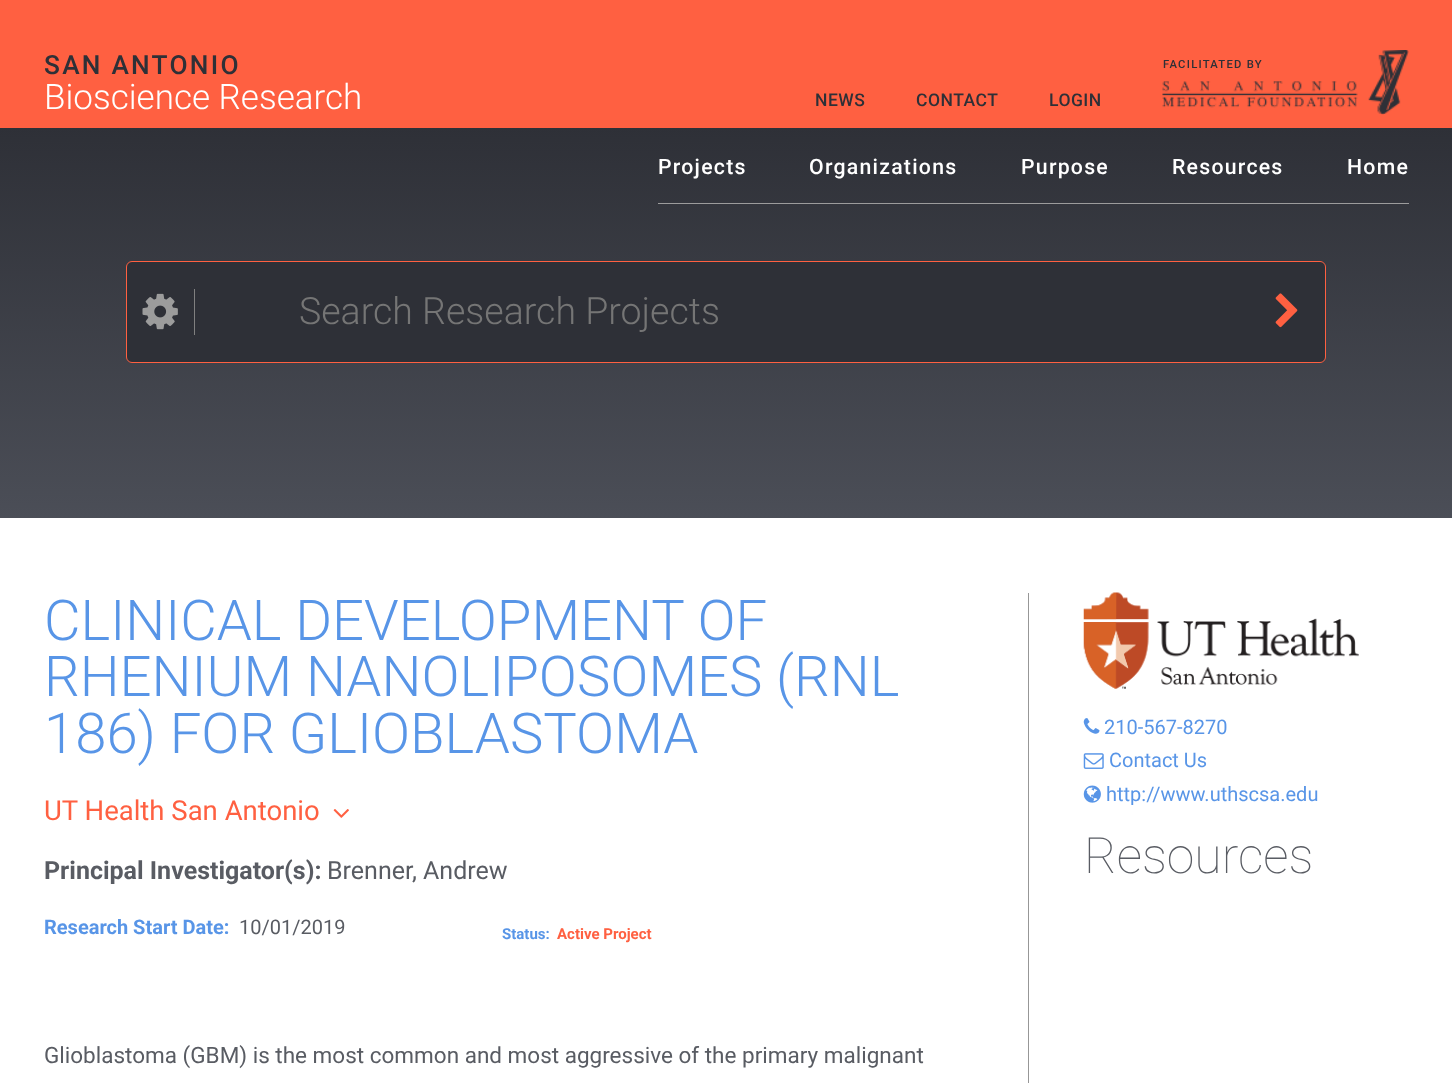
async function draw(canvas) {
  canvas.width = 1452
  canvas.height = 1083
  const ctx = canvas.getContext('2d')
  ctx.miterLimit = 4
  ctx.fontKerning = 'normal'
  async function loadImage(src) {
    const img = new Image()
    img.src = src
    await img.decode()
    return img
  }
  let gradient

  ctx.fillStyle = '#ff6041'
  ctx.fillRect(0, 0, 1452, 1083)
  ctx.letterSpacing = '2.25px'
  ctx.font = '500 26.25px Roboto'
  ctx.fillStyle = '#2e3037'
  ctx.fillText('SAN ANTONIO', 44, 74)
  ctx.letterSpacing = '0px'
  ctx.font = '300 35px Roboto'
  ctx.fillStyle = '#fff'
  ctx.fillText('Bioscience Research', 44, 109)
  ctx.letterSpacing = '1.25px'
  ctx.font = '500 11.25px Roboto'
  ctx.fillStyle = '#2e3037'
  ctx.fillText('FACILITATED BY', 1163, 68)
  ctx.drawImage(await loadImage('image0.png'), 1162, 50, 247, 65)
  ctx.letterSpacing = '0.5px'
  ctx.font = '500 17.5px Roboto'
  ctx.fillText('NEWS', 815, 106)
  ctx.fillText('CONTACT', 916, 106)
  ctx.fillText('LOGIN', 1049, 106)
  gradient = ctx.createLinearGradient(726, 127, 726, 518)
  gradient.addColorStop(0, '#2e3037')
  gradient.addColorStop(1, '#4b4e57')
  ctx.fillStyle = gradient
  ctx.fillRect(0, 128, 1452, 390)
  ctx.fillStyle = '#9c9c9c'
  ctx.fillRect(658, 203, 751, 1)
  ctx.letterSpacing = '1.25px'
  ctx.font = '500 21.25px Roboto'
  ctx.fillStyle = '#fff'
  ctx.fillText('Projects', 658, 174)
  ctx.fillText('Organizations', 809, 174)
  ctx.fillText('Purpose', 1021, 174)
  ctx.fillText('Resources', 1172, 174)
  ctx.fillText('Home', 1347, 174)
  ctx.fillStyle = '#2e3037'
  ctx.beginPath()
  ctx.roundRect(126.5, 261.5, 1199, 101, 5.5)
  ctx.fill()
  ctx.strokeStyle = '#ff6041'
  ctx.stroke()
  ctx.fillStyle = '#808080'
  ctx.fillRect(194, 289, 1, 46)
  ctx.drawImage(await loadImage('image1.png'), 142, 293, 36, 37)
  ctx.letterSpacing = '0px'
  ctx.font = '300 37.5px Roboto'
  ctx.fillStyle = '#757575'
  ctx.fillText('Search Research Projects', 299, 324)
  ctx.drawImage(await loadImage('image2.png'), 1275, 293, 23, 35)
  ctx.fillStyle = '#fff'
  ctx.fillRect(0, 518, 1452, 565)
  ctx.font = '300 56.25px Roboto'
  ctx.fillStyle = '#5895e7'
  ctx.fillText('CLINICAL DEVELOPMENT OF', 44, 640)
  ctx.fillText('RHENIUM NANOLIPOSOMES (RNL', 44, 696)
  ctx.fillText('186) FOR GLIOBLASTOMA', 44, 753)
  ctx.font = '27.5px Roboto'
  ctx.fillStyle = '#ff6041'
  ctx.fillText('UT Health San Antonio', 44, 820)
  ctx.drawImage(await loadImage('image3.png'), 333, 809, 16, 9)
  ctx.font = 'bold 25px Roboto'
  ctx.fillStyle = '#595c63'
  ctx.fillText('Principal Investigator(s):', 44, 879)
  ctx.font = '25px Roboto'
  ctx.fillText('Brenner, Andrew', 327, 879)
  ctx.font = 'bold 20px Roboto'
  ctx.fillStyle = '#5895e7'
  ctx.fillText('Research Start Date:', 44, 934)
  ctx.font = '20px Roboto'
  ctx.fillStyle = '#595c63'
  ctx.fillText('10/01/2019', 239, 934)
  ctx.font = 'bold 15px Roboto'
  ctx.fillStyle = '#5895e7'
  ctx.fillText('Status:', 502, 939)
  ctx.fillStyle = '#ff6041'
  ctx.fillText('Active Project', 557, 939)
  ctx.font = '22.5px Roboto'
  ctx.fillStyle = '#595c63'
  ctx.fillText('Glioblastoma (GBM) is the most common and most aggressive of the primary malignant', 44, 1063)
  ctx.fillStyle = '#979797'
  ctx.fillRect(1028, 593, 1, 490)
  ctx.drawImage(await loadImage('image4.png'), 1083, 592, 276, 97)
  ctx.drawImage(await loadImage('image5.png'), 1083, 718, 17, 16)
  ctx.font = '20px Roboto'
  ctx.fillStyle = '#5895e7'
  ctx.fillText('210-567-8270', 1104, 734)
  ctx.drawImage(await loadImage('image6.png'), 1083, 753, 21, 16)
  ctx.fillText('Contact Us', 1109, 767)
  ctx.drawImage(await loadImage('image7.png'), 1083, 785, 18, 18)
  ctx.fillText('http://www.uthscsa.edu', 1106, 801)
  ctx.font = '100 50px Roboto'
  ctx.fillStyle = '#595c63'
  ctx.fillText('Resources', 1084, 873)
}

draw(document.querySelector('canvas'))
